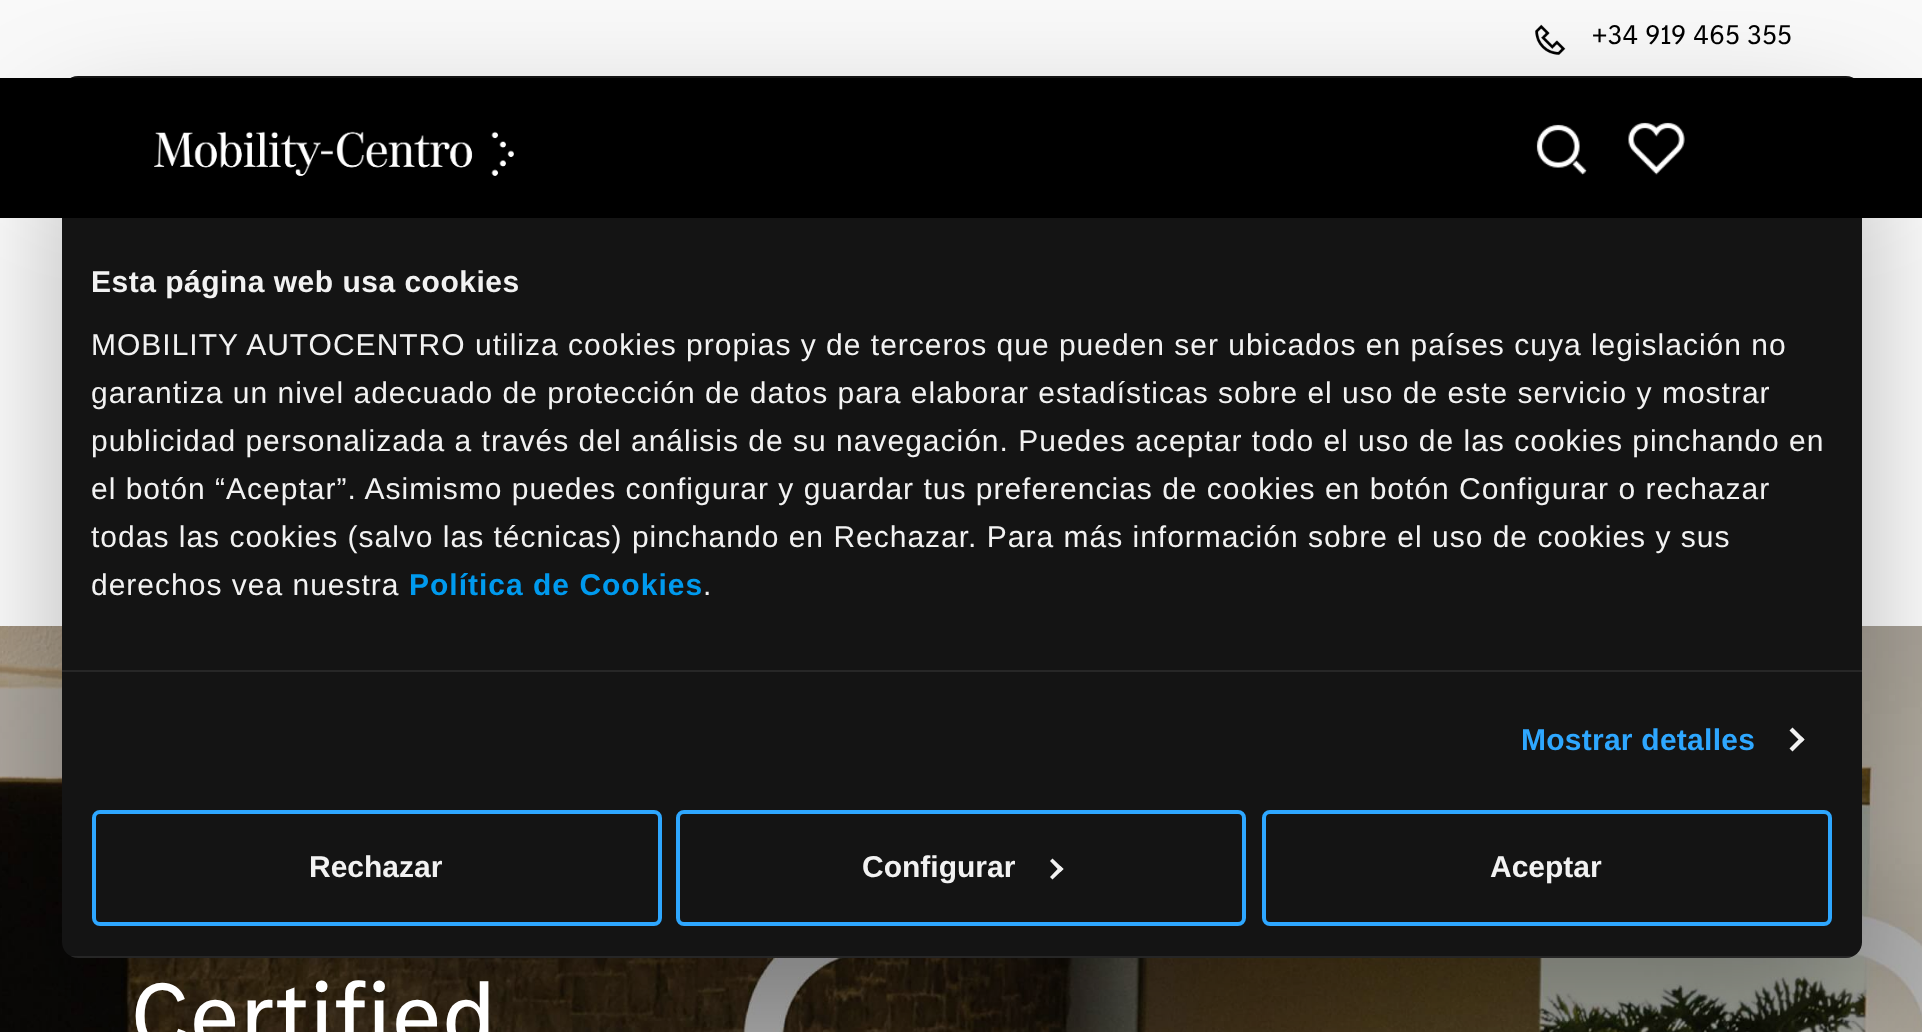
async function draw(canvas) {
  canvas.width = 1922
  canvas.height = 1032
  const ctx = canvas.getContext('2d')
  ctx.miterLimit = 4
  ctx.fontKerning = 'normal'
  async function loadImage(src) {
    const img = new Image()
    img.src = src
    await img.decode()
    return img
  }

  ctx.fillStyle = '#fff'
  ctx.fillRect(0, 0, 1922, 1032)
  ctx.fillStyle = '#f9f9f9'
  ctx.fillRect(0, 0, 1922, 78)
  ctx.drawImage(await loadImage('image0.png'), 1535, 24, 31, 31)
  ctx.font = '28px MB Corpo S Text'
  ctx.fillStyle = '#000'
  ctx.fillText('+34 919 465 355', 1592, 44)
  ctx.drawImage(await loadImage('image4.png'), 0, 626, 1922, 406)
  ctx.fillStyle = '#0000004d'
  ctx.filter = 'blur(68px)'
  ctx.beginPath()
  ctx.roundRect(62, 140, 1800, 882, 16)
  ctx.fill()
  ctx.filter = 'none'
  ctx.fillStyle = '#141414'
  ctx.beginPath()
  ctx.roundRect(62, 76, 1800, 882, 16)
  ctx.fill()
  ctx.fillStyle = '#000'
  ctx.fillRect(0, 78, 1922, 140)
  ctx.drawImage(await loadImage('image1.png'), 154, 131, 360, 45)
  ctx.drawImage(await loadImage('image2.png'), 1536, 124, 51, 51)
  ctx.drawImage(await loadImage('image3.png'), 1628, 122, 57, 53)
  ctx.fillStyle = '#272727'
  ctx.fillRect(62, 670, 1800, 2)
  ctx.letterSpacing = '0.5px'
  ctx.font = 'bold 30px Liberation Sans'
  ctx.fillStyle = '#f2f2f2'
  ctx.fillText('Esta página web usa cookies', 91, 292)
  ctx.letterSpacing = '1px'
  ctx.font = '30px Liberation Sans'
  ctx.fillText('MOBILITY AUTOCENTRO utiliza cookies propias y de terceros que pueden ser ubicados en países cuya legislación no', 91, 355)
  ctx.fillText('garantiza un nivel adecuado de protección de datos para elaborar estadísticas sobre el uso de este servicio y mostrar', 91, 403)
  ctx.fillText('publicidad personalizada a través del análisis de su navegación. Puedes aceptar todo el uso de las cookies pinchando en', 91, 451)
  ctx.fillText('el botón “Aceptar”. Asimismo puedes configurar y guardar tus preferencias de cookies en botón Configurar o rechazar', 91, 499)
  ctx.fillText('todas las cookies (salvo las técnicas) pinchando en Rechazar. Para más información sobre el uso de cookies y sus', 91, 547)
  ctx.fillText('derechos vea nuestra', 91, 595)
  ctx.font = 'bold 30px Liberation Sans'
  ctx.fillStyle = '#009aee'
  ctx.fillText('Política de Cookies', 409, 595)
  ctx.font = '30px Liberation Sans'
  ctx.fillStyle = '#f2f2f2'
  ctx.fillText('.', 703, 595)
  ctx.letterSpacing = '0.25px'
  ctx.font = 'bold 30px Liberation Sans'
  ctx.fillStyle = '#2ea7ff'
  ctx.fillText('Mostrar detalles', 1521, 750)
  ctx.fillStyle = '#f2f2f2'
  ctx.beginPath()
  ctx.moveTo(1792.5, 727.5)
  ctx.lineTo(1804.5, 739.5)
  ctx.lineTo(1801.5, 742.5)
  ctx.lineTo(1789.5, 730.5)
  ctx.closePath()
  ctx.fill()
  ctx.beginPath()
  ctx.moveTo(1801.5, 736.5)
  ctx.lineTo(1804.5, 739.5)
  ctx.lineTo(1792.5, 751.5)
  ctx.lineTo(1789.5, 748.5)
  ctx.closePath()
  ctx.fill()
  ctx.save()
  ctx.beginPath()
  ctx.roundRect(62, 76, 1800, 882, 16)
  ctx.clip()
  ctx.fillStyle = '#ffffff14'
  ctx.fillRect(71, 956, 1782, 2)
  ctx.restore()
  ctx.beginPath()
  ctx.roundRect(94, 812, 566, 112, 6)
  ctx.strokeStyle = '#2ea7ff'
  ctx.lineWidth = 4
  ctx.stroke()
  ctx.letterSpacing = '0px'
  ctx.fillText('Rechazar', 309, 877)
  ctx.beginPath()
  ctx.roundRect(678, 812, 566, 112, 6)
  ctx.stroke()
  ctx.fillText('Configurar', 862, 877)
  ctx.beginPath()
  ctx.moveTo(1052.5, 858.5)
  ctx.lineTo(1063.5, 869)
  ctx.lineTo(1060.5, 872)
  ctx.lineTo(1050, 861)
  ctx.closePath()
  ctx.fill()
  ctx.beginPath()
  ctx.moveTo(1060.5, 866)
  ctx.lineTo(1063.5, 869)
  ctx.lineTo(1052.5, 879.5)
  ctx.lineTo(1050, 877)
  ctx.closePath()
  ctx.fill()
  ctx.beginPath()
  ctx.roundRect(1264, 812, 566, 112, 6)
  ctx.stroke()
  ctx.fillText('Aceptar', 1490, 877)
  ctx.letterSpacing = '-0.1px'
  ctx.font = '96px MB Corpo S Text'
  ctx.fillStyle = '#fff'
  ctx.fillText('Certified', 130, 1048)
}

draw(document.querySelector('canvas'))
